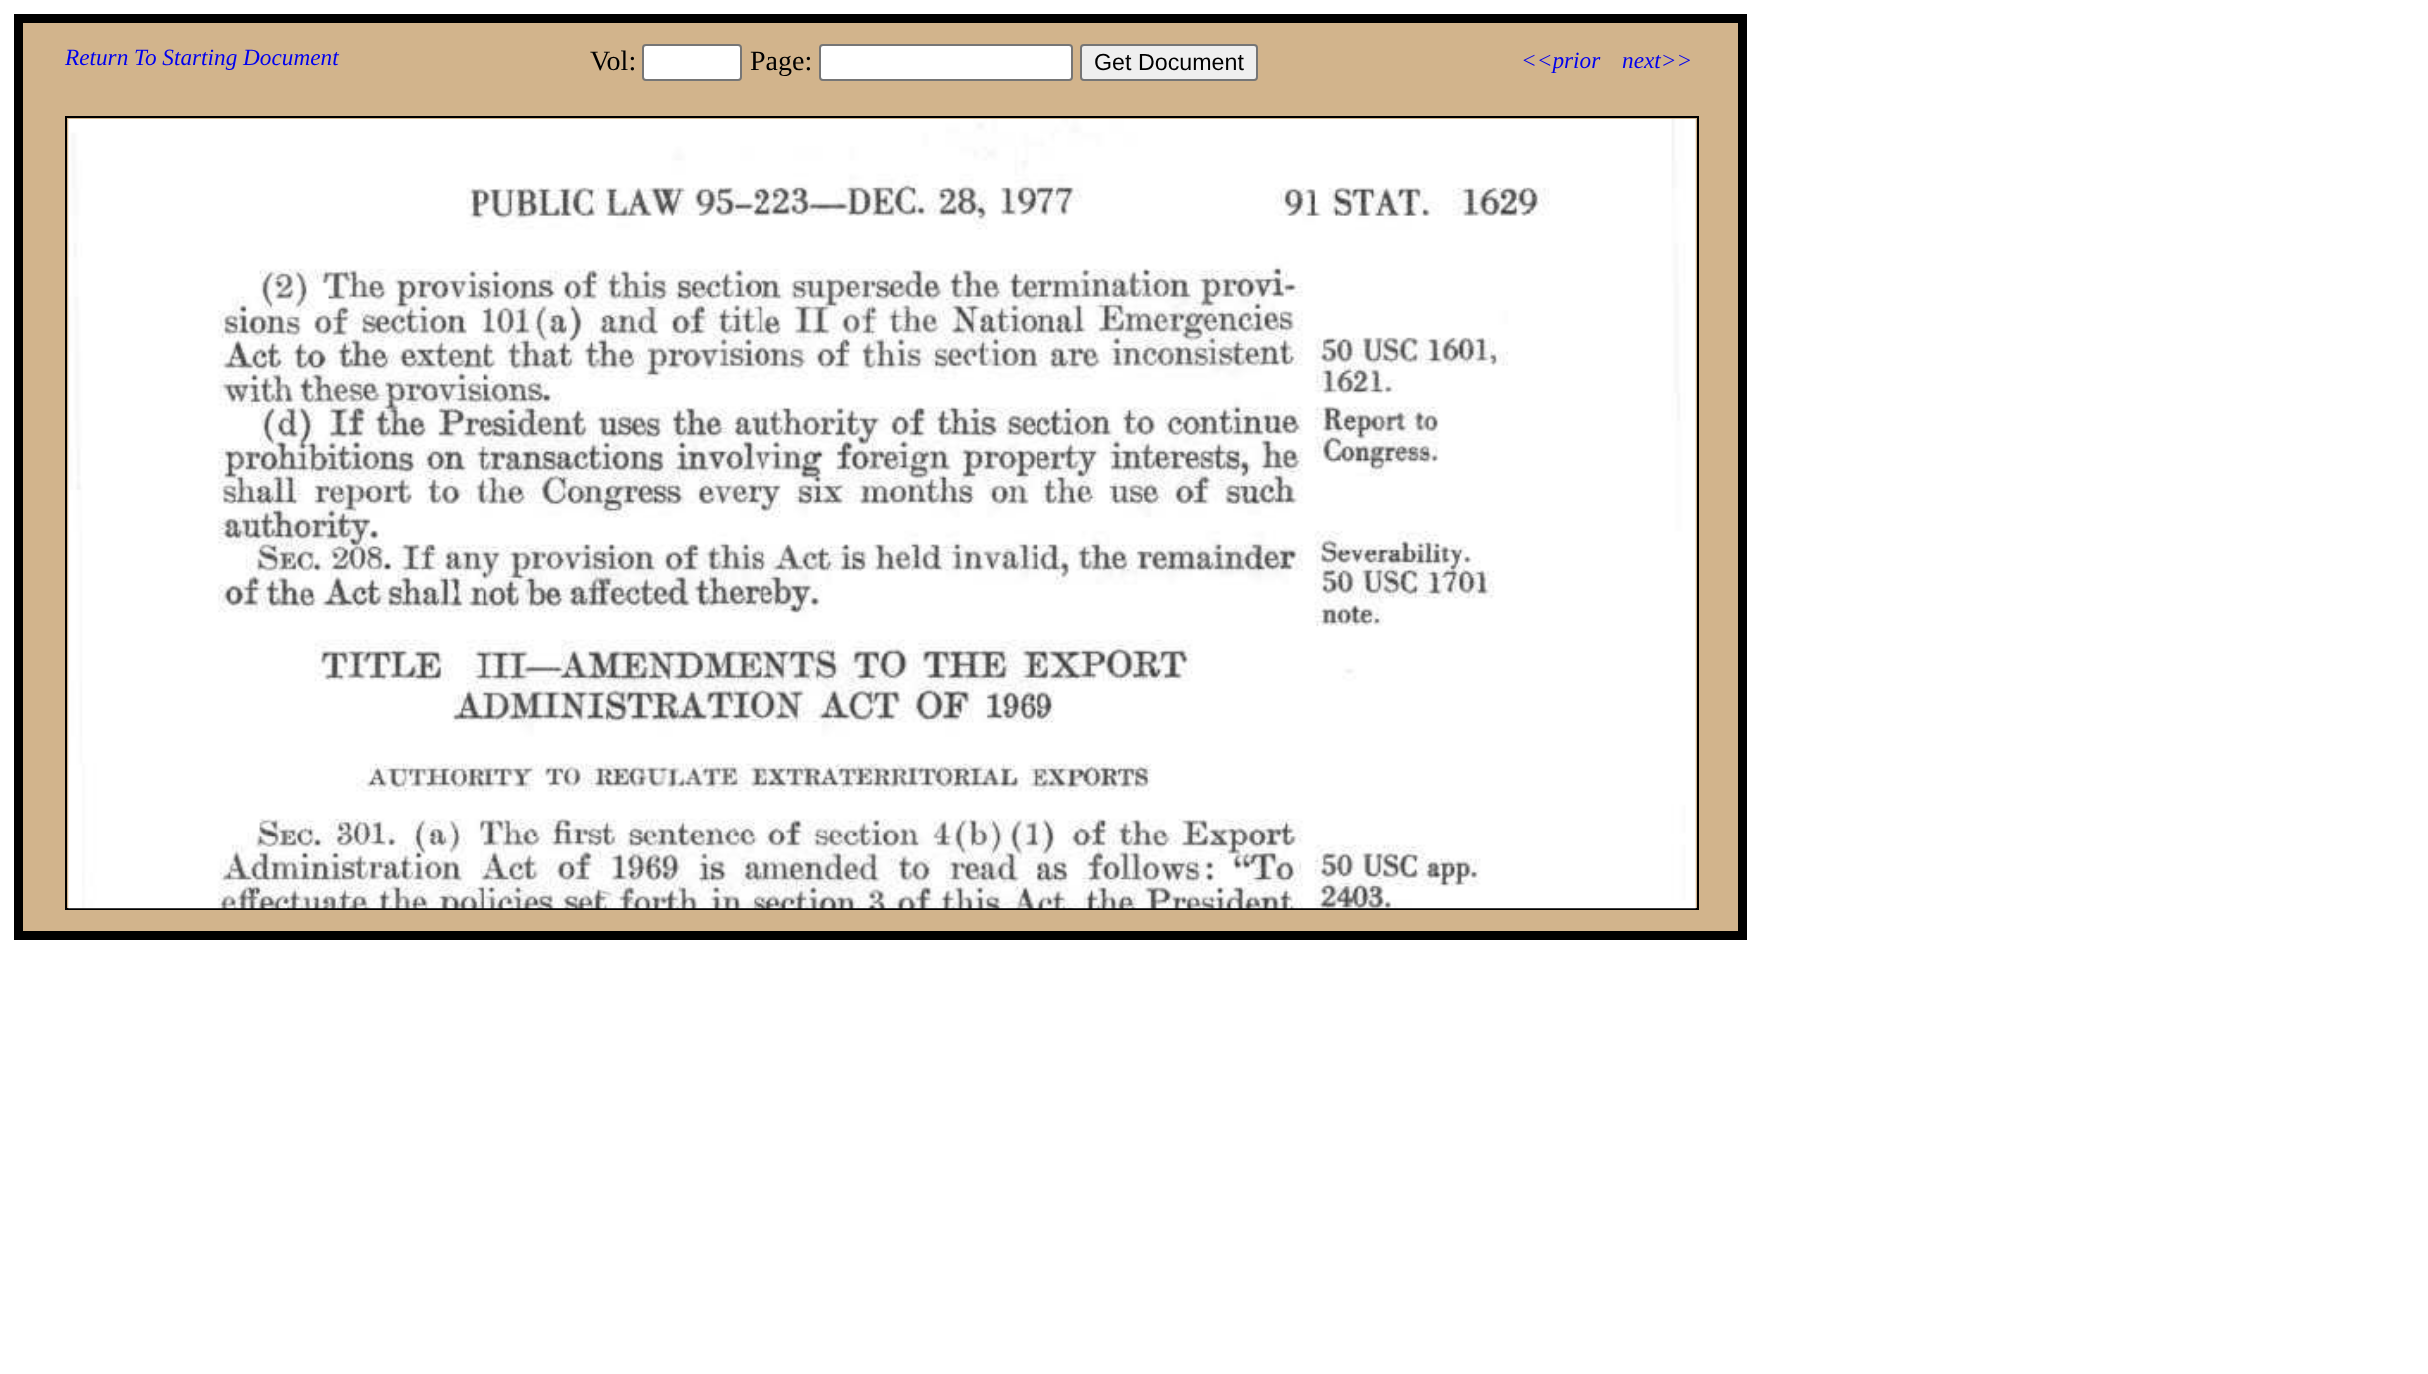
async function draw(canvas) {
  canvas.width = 2428
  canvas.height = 1374
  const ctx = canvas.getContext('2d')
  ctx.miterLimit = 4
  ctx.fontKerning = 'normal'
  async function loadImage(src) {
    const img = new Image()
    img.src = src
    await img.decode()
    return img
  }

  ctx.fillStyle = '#fff'
  ctx.fillRect(0, 0, 2428, 1374)
  ctx.fillStyle = '#d2b48c'
  ctx.beginPath()
  ctx.rect(18.5, 18.5, 1724, 917)
  ctx.fill()
  ctx.strokeStyle = '#000'
  ctx.lineWidth = 9
  ctx.stroke()
  ctx.font = 'italic 23.25px Liberation Serif'
  ctx.fillStyle = '#00e'
  ctx.fillText('Return To Starting Document', 65, 65)
  ctx.font = '28px Liberation Serif'
  ctx.fillStyle = '#000'
  ctx.fillText('Vol:', 590, 70)
  ctx.fillStyle = '#fff'
  ctx.beginPath()
  ctx.roundRect(643, 45, 98, 35, 3)
  ctx.fill()
  ctx.strokeStyle = '#767676'
  ctx.lineWidth = 2
  ctx.stroke()
  ctx.fillStyle = '#000'
  ctx.fillText('Page:', 750, 70)
  ctx.fillStyle = '#fff'
  ctx.beginPath()
  ctx.roundRect(820, 45, 252, 35, 3)
  ctx.fill()
  ctx.stroke()
  ctx.fillStyle = '#efefef'
  ctx.beginPath()
  ctx.roundRect(1081, 45, 176, 35, 3)
  ctx.fill()
  ctx.stroke()
  ctx.font = '23.25px Liberation Sans'
  ctx.fillStyle = '#000'
  ctx.fillText('Get Document', 1094, 70)
  ctx.font = 'italic 23.25px Liberation Serif'
  ctx.fillStyle = '#00e'
  ctx.fillText('<<prior', 1521, 68)
  ctx.fillText('next>>', 1622, 68)
  ctx.strokeStyle = '#000'
  ctx.strokeRect(66, 117, 1632, 792)
  ctx.drawImage(await loadImage('image0.png'), 68, 119, 1628, 790)
}

draw(document.querySelector('canvas'))
